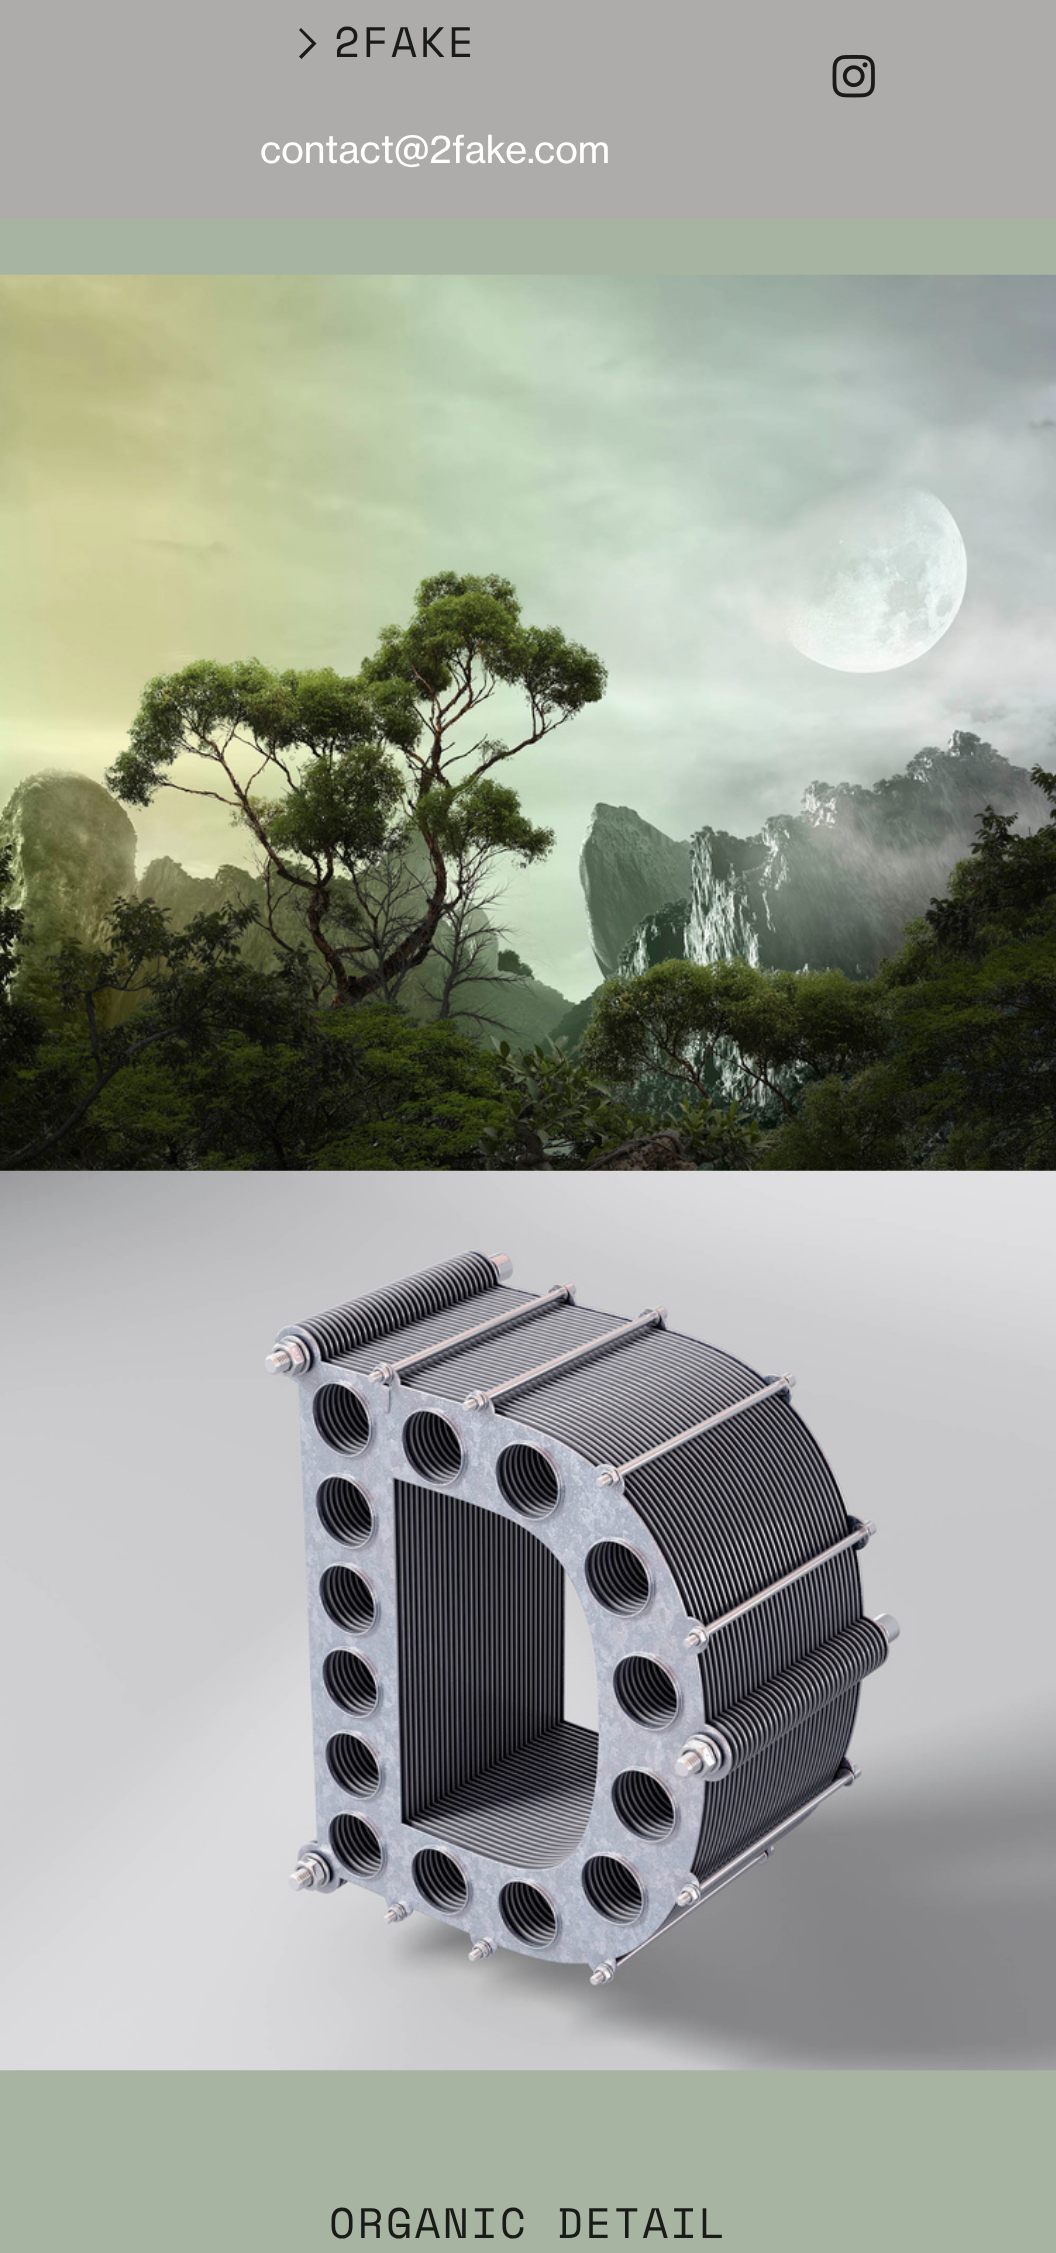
async function draw(canvas) {
  canvas.width = 1056
  canvas.height = 2253
  const ctx = canvas.getContext('2d')
  ctx.miterLimit = 4
  ctx.fontKerning = 'normal'
  async function loadImage(src) {
    const img = new Image()
    img.src = src
    await img.decode()
    return img
  }

  ctx.fillStyle = '#a7b4a1'
  ctx.fillRect(0, 0, 1056, 2253)
  ctx.fillStyle = '#aeabab'
  ctx.fillRect(0, 0, 1056, 219)
  ctx.letterSpacing = '2.4px'
  ctx.font = '42.6px Space Mono'
  ctx.fillStyle = '#191b18'
  ctx.fillText('2FAKE', 334, 57)
  ctx.fillStyle = '#1a1a1a'
  ctx.beginPath()
  ctx.moveTo(316.5, 43.5)
  ctx.lineTo(301, 28)
  ctx.lineTo(299, 30)
  ctx.lineTo(312, 43.5)
  ctx.lineTo(299, 56.5)
  ctx.lineTo(301.5, 59)
  ctx.closePath()
  ctx.fill()
  ctx.letterSpacing = '0px'
  ctx.font = '37.9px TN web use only'
  ctx.fillStyle = '#fff'
  ctx.fillText('contact@2fake.com', 260, 163)
  ctx.drawImage(await loadImage('image0.png'), 832, 55, 43, 43)
  ctx.drawImage(await loadImage('image1.png'), 0, 274, 1056, 897)
  ctx.drawImage(await loadImage('image2.png'), 0, 1170, 1056, 901)
  ctx.letterSpacing = '2.4px'
  ctx.font = '42.6px Space Mono'
  ctx.fillStyle = '#191b18'
  ctx.fillText('ORGANIC DETAIL', 329, 2238)
}

draw(document.querySelector('canvas'))
